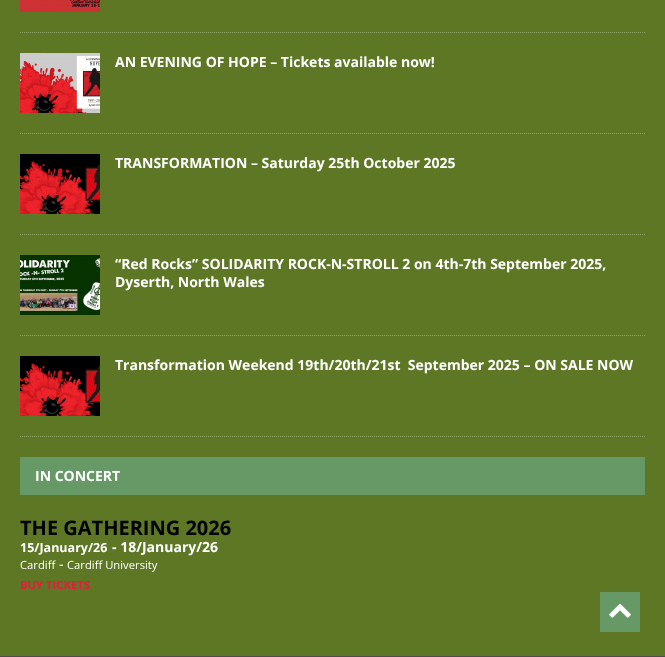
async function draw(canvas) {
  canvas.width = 665
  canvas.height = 657
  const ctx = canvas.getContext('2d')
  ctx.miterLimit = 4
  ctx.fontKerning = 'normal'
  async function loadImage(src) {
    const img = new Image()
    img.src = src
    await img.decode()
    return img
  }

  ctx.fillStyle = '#4d4d4d'
  ctx.fillRect(0, 0, 665, 657)
  ctx.fillStyle = '#5d7725'
  ctx.fillRect(0, 0, 665, 656)
  ctx.beginPath()
  ctx.moveTo(20, 32.5)
  ctx.lineTo(645, 32.5)
  ctx.strokeStyle = '#8ea066'
  ctx.setLineDash([1, 1])
  ctx.stroke()
  ctx.drawImage(await loadImage('image0.png'), 20, 0, 80, 12)
  ctx.beginPath()
  ctx.moveTo(20, 133.5)
  ctx.lineTo(645, 133.5)
  ctx.stroke()
  ctx.drawImage(await loadImage('image1.png'), 20, 53, 80, 60)
  ctx.font = 'bold 14px Open Sans'
  ctx.fillStyle = '#fff'
  ctx.fillText('AN EVENING OF HOPE – Tickets available now!', 115, 67)
  ctx.beginPath()
  ctx.moveTo(20, 234.5)
  ctx.lineTo(645, 234.5)
  ctx.stroke()
  ctx.drawImage(await loadImage('image2.png'), 20, 154, 80, 60)
  ctx.fillText('TRANSFORMATION – Saturday 25th October 2025', 115, 168)
  ctx.beginPath()
  ctx.moveTo(20, 335.5)
  ctx.lineTo(645, 335.5)
  ctx.stroke()
  ctx.drawImage(await loadImage('image3.png'), 20, 255, 80, 60)
  ctx.fillText('“Red Rocks” SOLIDARITY ROCK-N-STROLL 2 on 4th-7th September 2025,', 115, 269)
  ctx.fillText('Dyserth, North Wales', 115, 287)
  ctx.beginPath()
  ctx.moveTo(20, 436.5)
  ctx.lineTo(645, 436.5)
  ctx.stroke()
  ctx.drawImage(await loadImage('image2.png'), 20, 356, 80, 60)
  ctx.fillText('Transformation Weekend 19th/20th/21st  September 2025 – ON SALE NOW', 115, 370)
  ctx.fillStyle = '#696'
  ctx.fillRect(20, 457, 625, 38)
  ctx.fillStyle = '#fff'
  ctx.fillText('IN CONCERT', 35, 481)
  ctx.font = 'bold 20px Open Sans'
  ctx.fillStyle = '#000'
  ctx.fillText('THE GATHERING 2026', 20, 535)
  ctx.font = 'bold 12.5px Open Sans'
  ctx.fillStyle = '#fff'
  ctx.fillText('15/January/26', 20, 552)
  ctx.font = 'bold 14px Open Sans'
  ctx.fillText('- 18/January/26', 112, 552)
  ctx.font = '11.25px Open Sans'
  ctx.fillText('Cardiff', 20, 569)
  ctx.font = '14px Open Sans'
  ctx.fillText('-', 59, 569)
  ctx.font = '11.25px Open Sans'
  ctx.fillText('Cardiff University', 67, 569)
  ctx.font = 'bold 11.25px Open Sans'
  ctx.fillStyle = '#f5133f'
  ctx.fillText('BUY TICKETS', 20, 589)
  ctx.fillStyle = '#696'
  ctx.fillRect(600, 592, 40, 40)
  ctx.drawImage(await loadImage('image4.png'), 609, 604, 22, 14)
}

draw(document.querySelector('canvas'))
